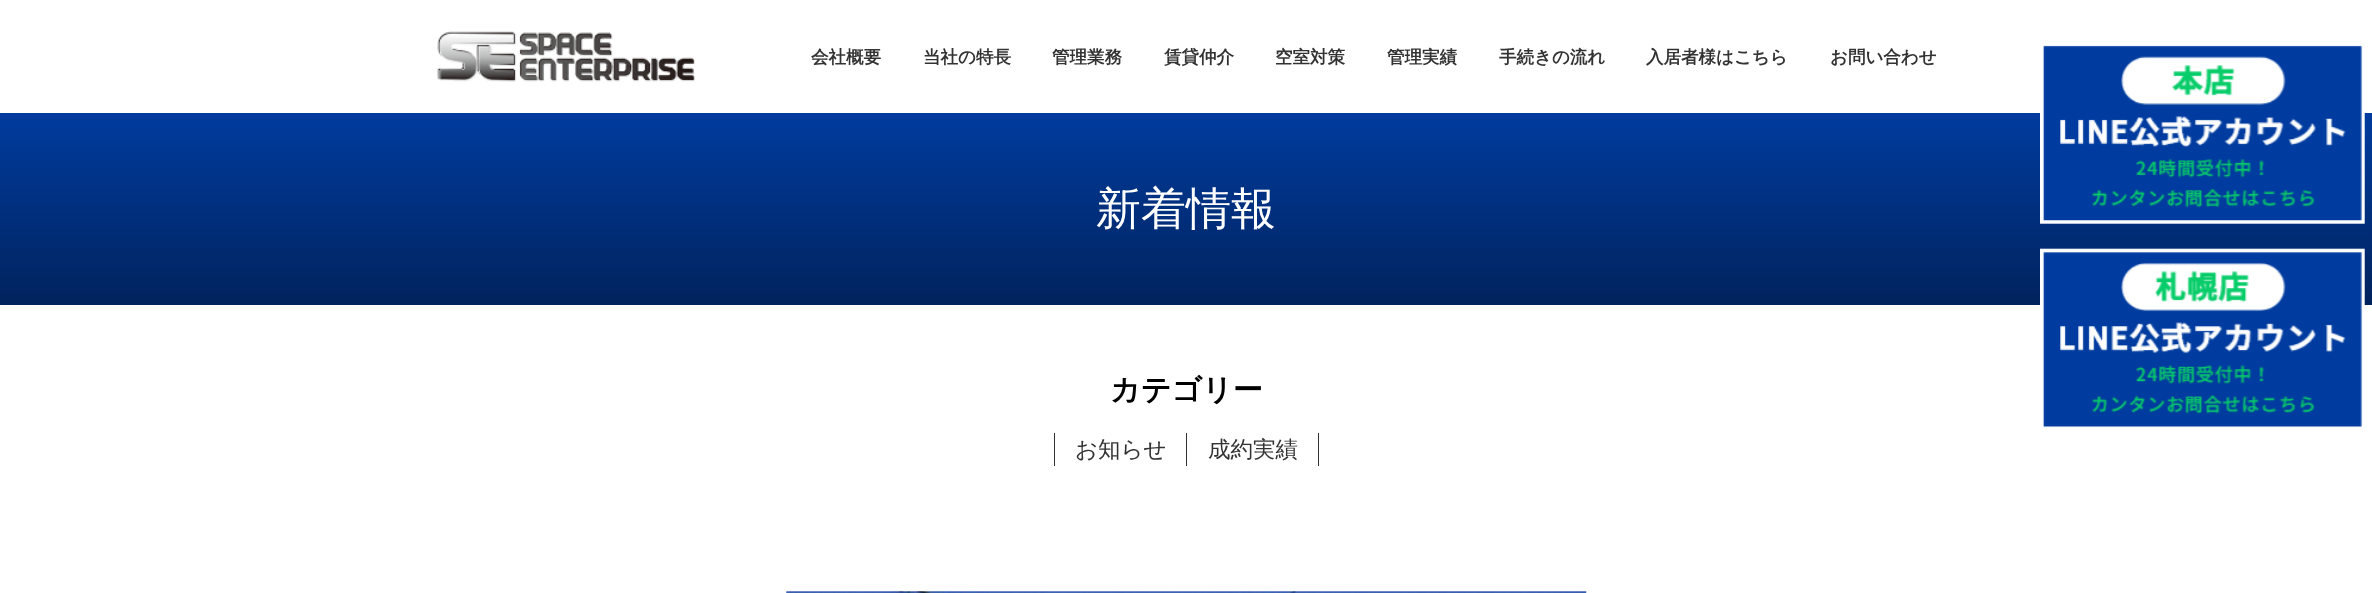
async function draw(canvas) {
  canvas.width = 2372
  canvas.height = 593
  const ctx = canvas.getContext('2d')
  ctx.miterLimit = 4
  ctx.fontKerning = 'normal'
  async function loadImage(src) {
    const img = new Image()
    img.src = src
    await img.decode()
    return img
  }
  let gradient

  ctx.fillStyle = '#fff'
  ctx.fillRect(0, 0, 2372, 593)
  ctx.drawImage(await loadImage('image0.png'), 437, 31, 258, 51)
  ctx.font = 'bold 17.5px WenQuanYi Zen Hei'
  ctx.fillStyle = '#333'
  ctx.fillText('会社概要', 811, 63)
  ctx.fillText('当社の特長', 923, 63)
  ctx.fillText('管理業務', 1052, 63)
  ctx.fillText('賃貸仲介', 1164, 63)
  ctx.fillText('空室対策', 1275, 63)
  ctx.fillText('管理実績', 1387, 63)
  ctx.fillText('手続きの流れ', 1499, 63)
  ctx.fillText('入居者様はこちら', 1646, 63)
  ctx.fillText('お問い合わせ', 1830, 63)
  gradient = ctx.createLinearGradient(1186, 112, 1186, 305)
  gradient.addColorStop(0, '#003c9f')
  gradient.addColorStop(1, '#01235d')
  ctx.fillStyle = gradient
  ctx.fillRect(0, 113, 2372, 192)
  ctx.font = '500 45px WenQuanYi Zen Hei'
  ctx.fillStyle = '#fff'
  ctx.fillText('新着情報', 1096, 224)
  ctx.font = 'bold 30px WenQuanYi Zen Hei'
  ctx.fillStyle = '#000'
  ctx.fillText('カテゴリー', 1110, 400)
  ctx.fillStyle = '#333'
  ctx.fillRect(1186, 433, 1, 33)
  ctx.fillRect(1054, 433, 1, 33)
  ctx.font = '500 22.5px WenQuanYi Zen Hei'
  ctx.fillText('お知らせ', 1075, 457)
  ctx.fillRect(1318, 433, 1, 33)
  ctx.fillText('成約実績', 1208, 457)
  ctx.drawImage(await loadImage('image1.png'), 786, 591, 801, 2)
  ctx.drawImage(await loadImage('image2.png'), 2040, 45, 325, 179)
  ctx.drawImage(await loadImage('image3.png'), 2040, 248, 325, 180)
}

draw(document.querySelector('canvas'))
